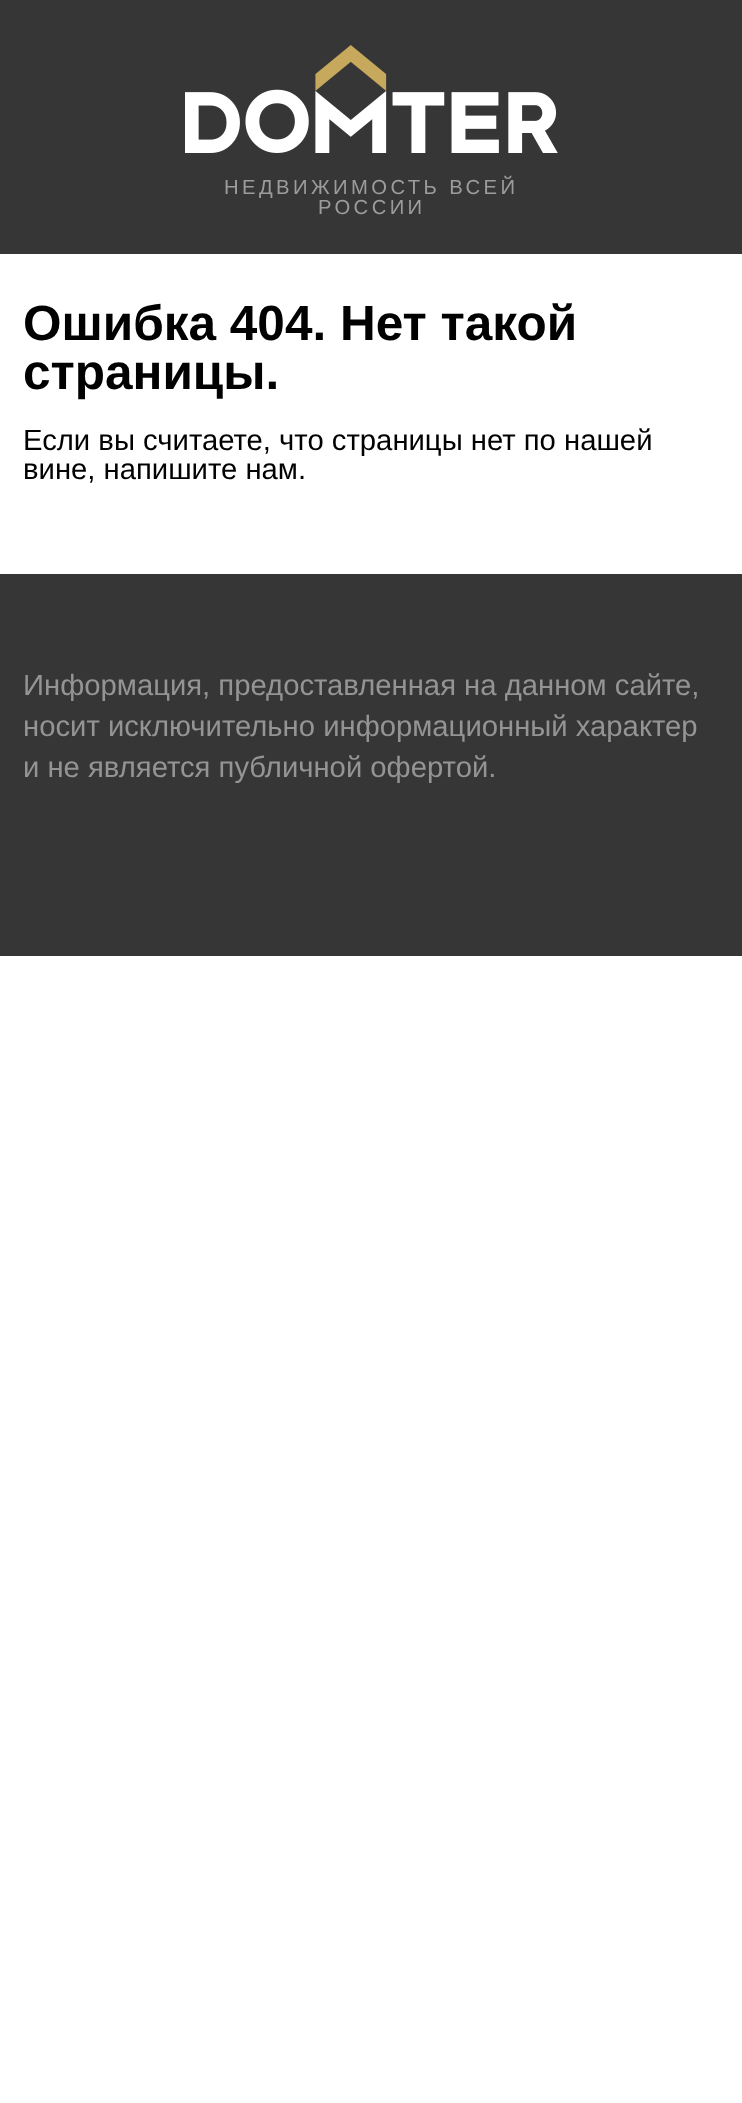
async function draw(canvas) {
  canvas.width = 742
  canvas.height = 2103
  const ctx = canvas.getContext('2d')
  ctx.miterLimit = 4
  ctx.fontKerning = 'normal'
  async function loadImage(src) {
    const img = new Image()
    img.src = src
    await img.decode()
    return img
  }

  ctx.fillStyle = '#fff'
  ctx.fillRect(0, 0, 742, 2103)
  ctx.fillStyle = '#363636'
  ctx.fillRect(0, 0, 742, 254)
  ctx.drawImage(await loadImage('image0.png'), 185, 45, 373, 108)
  ctx.letterSpacing = '3.4px'
  ctx.font = '20.25px Liberation Sans'
  ctx.fillStyle = '#9c9c9c'
  ctx.fillText('НЕДВИЖИМОСТЬ ВСЕЙ', 224, 194)
  ctx.fillText('РОССИИ', 318, 214)
  ctx.letterSpacing = '0px'
  ctx.font = 'bold 49.5px Liberation Sans'
  ctx.fillStyle = '#010101'
  ctx.fillText('Ошибка 404. Нет такой', 23, 340)
  ctx.fillText('страницы.', 23, 389)
  ctx.font = '29.25px Liberation Sans'
  ctx.fillText('Если вы считаете, что страницы нет по нашей', 23, 450)
  ctx.fillText('вине, напишите нам.', 23, 479)
  ctx.fillStyle = '#363636'
  ctx.fillRect(0, 574, 742, 382)
  ctx.fillStyle = '#949494'
  ctx.fillText('Информация, предоставленная на данном сайте,', 23, 695)
  ctx.fillText('носит исключительно информационный характер', 23, 736)
  ctx.fillText('и не является публичной офертой.', 23, 777)
}

draw(document.querySelector('canvas'))
